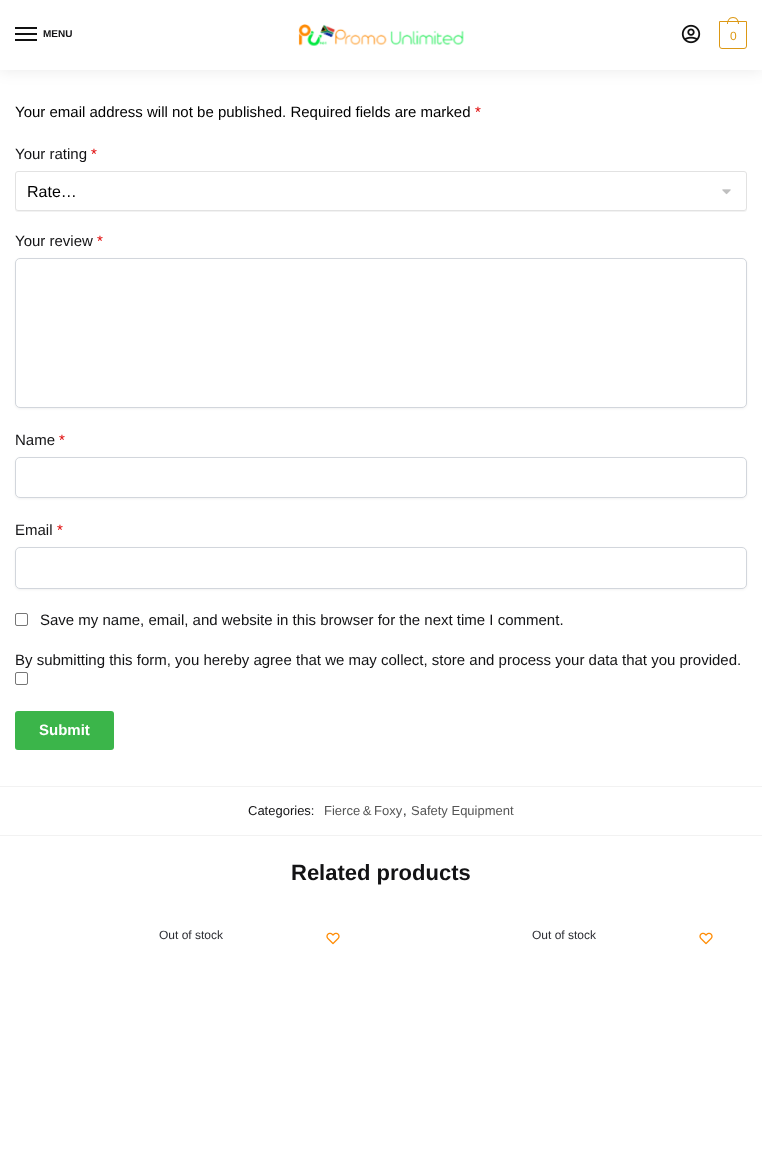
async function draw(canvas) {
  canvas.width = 762
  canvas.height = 1154
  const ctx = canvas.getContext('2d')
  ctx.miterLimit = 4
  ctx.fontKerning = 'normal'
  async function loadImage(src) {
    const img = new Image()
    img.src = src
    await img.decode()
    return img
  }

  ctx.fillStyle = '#fff'
  ctx.fillRect(0, 0, 762, 1154)
  ctx.fillStyle = '#00000014'
  ctx.filter = 'blur(7.5px)'
  ctx.beginPath()
  ctx.rect(0, 1, 762, 70)
  ctx.fill()
  ctx.filter = 'none'
  ctx.fillStyle = '#fff'
  ctx.fillRect(0, 0, 762, 70)
  ctx.fillStyle = '#111'
  ctx.fillRect(15, 27, 22, 2)
  ctx.fillRect(15, 33, 22, 2)
  ctx.font = 'bold 10px Liberation Sans'
  ctx.fillStyle = '#131315'
  ctx.fillText('MENU', 43, 37)
  ctx.fillStyle = '#111'
  ctx.fillRect(15, 39, 22, 2)
  ctx.drawImage(await loadImage('image0.png'), 298, 24, 166, 22)
  ctx.drawImage(await loadImage('image1.png'), 681, 24, 20, 20)
  ctx.beginPath()
  ctx.roundRect(719.5, 21.5, 27, 27, [0, 0, 2.5, 2.5])
  ctx.strokeStyle = '#dc9814'
  ctx.stroke()
  ctx.fillStyle = '#dc9814'
  ctx.beginPath()
  ctx.moveTo(733, 17)
  ctx.bezierCurveTo(737, 17, 739, 20.5, 739, 24)
  ctx.lineTo(727, 24)
  ctx.bezierCurveTo(727, 20.5, 729, 17, 733, 17)
  ctx.closePath()
  ctx.moveTo(733, 18)
  ctx.bezierCurveTo(736.5, 18, 738, 21, 738, 24)
  ctx.lineTo(728, 24)
  ctx.bezierCurveTo(728, 21, 729.5, 18, 733, 18)
  ctx.closePath()
  ctx.fill('evenodd')
  ctx.letterSpacing = '-1px'
  ctx.font = '12px Liberation Sans'
  ctx.fillText('0', 730, 40)
  ctx.letterSpacing = '0px'
  ctx.font = '15px Liberation Sans'
  ctx.fillStyle = '#000'
  ctx.fillText('Your email address will not be published. Required fields are marked', 15, 117)
  ctx.fillStyle = '#df0202'
  ctx.fillText('*', 475, 117)
  ctx.fillStyle = '#131315'
  ctx.fillText('Your rating', 15, 159)
  ctx.fillStyle = '#df0202'
  ctx.fillText('*', 91, 159)
  ctx.save()
  ctx.beginPath()
  ctx.moveTo(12, 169)
  ctx.lineTo(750, 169)
  ctx.lineTo(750, 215)
  ctx.lineTo(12, 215)
  ctx.closePath()
  ctx.moveTo(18, 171)
  ctx.lineTo(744, 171)
  ctx.bezierCurveTo(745.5, 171, 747, 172.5, 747, 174)
  ctx.lineTo(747, 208)
  ctx.bezierCurveTo(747, 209.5, 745.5, 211, 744, 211)
  ctx.lineTo(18, 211)
  ctx.bezierCurveTo(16.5, 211, 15, 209.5, 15, 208)
  ctx.lineTo(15, 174)
  ctx.bezierCurveTo(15, 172.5, 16.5, 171, 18, 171)
  ctx.closePath()
  ctx.clip('evenodd')
  ctx.fillStyle = '#0000000d'
  ctx.filter = 'blur(0.5px)'
  ctx.beginPath()
  ctx.roundRect(15, 172, 732, 40, 3)
  ctx.fill()
  ctx.filter = 'none'
  ctx.restore()
  ctx.drawImage(await loadImage('image2.png'), 722, 189, 9, 6)
  ctx.beginPath()
  ctx.roundRect(15.5, 171.5, 731, 39, 2.5)
  ctx.strokeStyle = '#e2e2e2'
  ctx.stroke()
  ctx.font = '16px Liberation Sans'
  ctx.fillStyle = '#000'
  ctx.fillText('Rate…', 27, 197)
  ctx.font = '15px Liberation Sans'
  ctx.fillStyle = '#131315'
  ctx.fillText('Your review', 15, 246)
  ctx.fillStyle = '#df0202'
  ctx.fillText('*', 97, 246)
  ctx.fillStyle = '#0000000d'
  ctx.filter = 'blur(1px)'
  ctx.beginPath()
  ctx.roundRect(15, 259, 732, 150, 5)
  ctx.fill()
  ctx.filter = 'none'
  ctx.fillStyle = '#fff'
  ctx.beginPath()
  ctx.roundRect(15.5, 258.5, 731, 149, 4.5)
  ctx.fill()
  ctx.strokeStyle = '#d2d6dc'
  ctx.stroke()
  ctx.fillStyle = '#131315'
  ctx.fillText('Name', 15, 445)
  ctx.fillStyle = '#df0202'
  ctx.fillText('*', 59, 445)
  ctx.fillStyle = '#0000000d'
  ctx.filter = 'blur(1px)'
  ctx.beginPath()
  ctx.roundRect(15, 458, 732, 41, 5)
  ctx.fill()
  ctx.filter = 'none'
  ctx.fillStyle = '#fff'
  ctx.beginPath()
  ctx.roundRect(15.5, 457.5, 731, 40, 4.5)
  ctx.fill()
  ctx.stroke()
  ctx.fillStyle = '#131315'
  ctx.fillText('Email', 15, 535)
  ctx.fillStyle = '#df0202'
  ctx.fillText('*', 57, 535)
  ctx.fillStyle = '#0000000d'
  ctx.filter = 'blur(1px)'
  ctx.beginPath()
  ctx.roundRect(15, 548, 732, 42, 5)
  ctx.fill()
  ctx.filter = 'none'
  ctx.fillStyle = '#fff'
  ctx.beginPath()
  ctx.roundRect(15.5, 547.5, 731, 41, 4.5)
  ctx.fill()
  ctx.stroke()
  ctx.beginPath()
  ctx.roundRect(15.5, 613.5, 12, 12, 1.5)
  ctx.strokeStyle = '#767676'
  ctx.stroke()
  ctx.fillStyle = '#131315'
  ctx.fillText('Save my name, email, and website in this browser for the next time I comment.', 40, 625)
  ctx.fillText('By submitting this form, you hereby agree that we may collect, store and process your data that you provided.', 15, 665)
  ctx.beginPath()
  ctx.roundRect(15.5, 672.5, 12, 12, 1.5)
  ctx.stroke()
  ctx.fillStyle = '#3bb54a'
  ctx.beginPath()
  ctx.roundRect(15, 711, 99, 39, 3)
  ctx.fill()
  ctx.font = 'bold 15px Liberation Sans'
  ctx.fillStyle = '#fff'
  ctx.fillText('Submit', 39, 735)
  ctx.fillStyle = '#f2f2f2'
  ctx.fillRect(0, 786, 762, 1)
  ctx.fillRect(0, 835, 762, 1)
  ctx.font = '13px Liberation Sans'
  ctx.fillStyle = '#131315'
  ctx.fillText('Categories:', 248, 815)
  ctx.wordSpacing = '-1px'
  ctx.fillStyle = '#555'
  ctx.fillText('Fierce & Foxy', 324, 815)
  ctx.wordSpacing = '0px'
  ctx.fillStyle = '#131315'
  ctx.fillText(',', 403, 815)
  ctx.fillStyle = '#555'
  ctx.fillText('Safety Equipment', 411, 815)
  ctx.font = 'bold 22px Liberation Sans'
  ctx.fillStyle = '#131315'
  ctx.fillText('Related products', 291, 880)
  ctx.font = '12px Liberation Sans'
  ctx.fillStyle = '#2c2d33'
  ctx.fillText('Out of stock', 159, 939)
  ctx.drawImage(await loadImage('image3.png'), 326, 932, 14, 13)
  ctx.fillText('Out of stock', 532, 939)
  ctx.drawImage(await loadImage('image3.png'), 699, 932, 14, 13)
}

draw(document.querySelector('canvas'))
